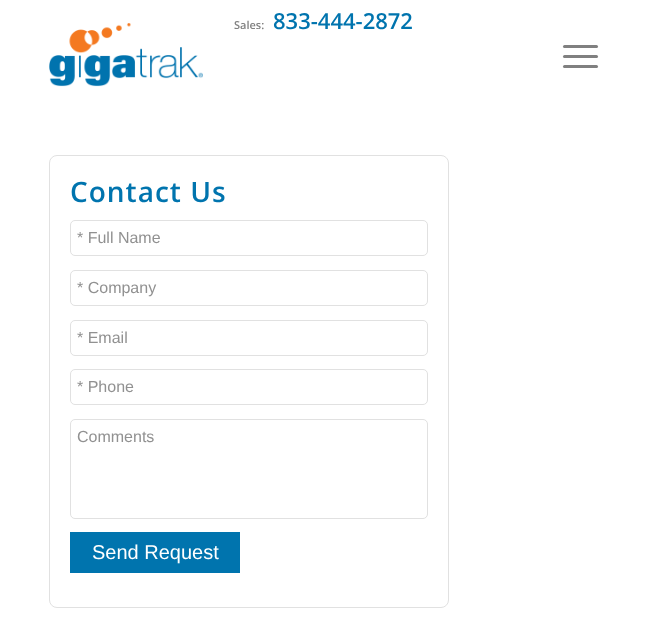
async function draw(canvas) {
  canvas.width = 647
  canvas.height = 638
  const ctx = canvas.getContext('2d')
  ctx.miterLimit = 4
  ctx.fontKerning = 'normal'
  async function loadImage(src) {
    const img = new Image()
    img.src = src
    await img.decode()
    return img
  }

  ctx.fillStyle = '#fff'
  ctx.fillRect(0, 0, 647, 638)
  ctx.font = '600 11px Open Sans'
  ctx.fillStyle = '#808080'
  ctx.fillText('Sales:', 234, 29)
  ctx.font = '600 22px Open Sans'
  ctx.fillStyle = '#0074ae'
  ctx.fillText('833-444-2872', 273, 29)
  ctx.drawImage(await loadImage('image0.png'), 49, 23, 154, 64)
  ctx.fillStyle = '#808080'
  ctx.beginPath()
  ctx.roundRect(563, 55, 35, 3, 1.5)
  ctx.fill()
  ctx.beginPath()
  ctx.roundRect(563, 45, 35, 3, 1.5)
  ctx.fill()
  ctx.beginPath()
  ctx.roundRect(563, 65, 35, 3, 1.5)
  ctx.fill()
  ctx.beginPath()
  ctx.roundRect(49.5, 155.5, 399, 452, 7.5)
  ctx.strokeStyle = '#e1e1e1'
  ctx.stroke()
  ctx.letterSpacing = '1px'
  ctx.font = '600 28px Open Sans'
  ctx.fillStyle = '#0074ae'
  ctx.fillText('Contact Us', 70, 202)
  ctx.beginPath()
  ctx.roundRect(70.5, 220.5, 357, 35, 4.5)
  ctx.stroke()
  ctx.letterSpacing = '0px'
  ctx.font = '16px Liberation Sans'
  ctx.fillStyle = '#919191'
  ctx.fillText('* Full Name', 77, 243)
  ctx.beginPath()
  ctx.roundRect(70.5, 270.5, 357, 35, 4.5)
  ctx.stroke()
  ctx.fillText('* Company', 77, 293)
  ctx.beginPath()
  ctx.roundRect(70.5, 320.5, 357, 35, 4.5)
  ctx.stroke()
  ctx.fillText('* Email', 77, 343)
  ctx.beginPath()
  ctx.roundRect(70.5, 369.5, 357, 35, 4.5)
  ctx.stroke()
  ctx.fillText('* Phone', 77, 392)
  ctx.beginPath()
  ctx.roundRect(70.5, 419.5, 357, 99, 4.5)
  ctx.stroke()
  ctx.fillText('Comments', 77, 442)
  ctx.fillStyle = '#0074ae'
  ctx.fillRect(70, 532, 170, 41)
  ctx.font = '20px Liberation Sans'
  ctx.fillStyle = '#fff'
  ctx.fillText('Send Request', 92, 559)
}

draw(document.querySelector('canvas'))
